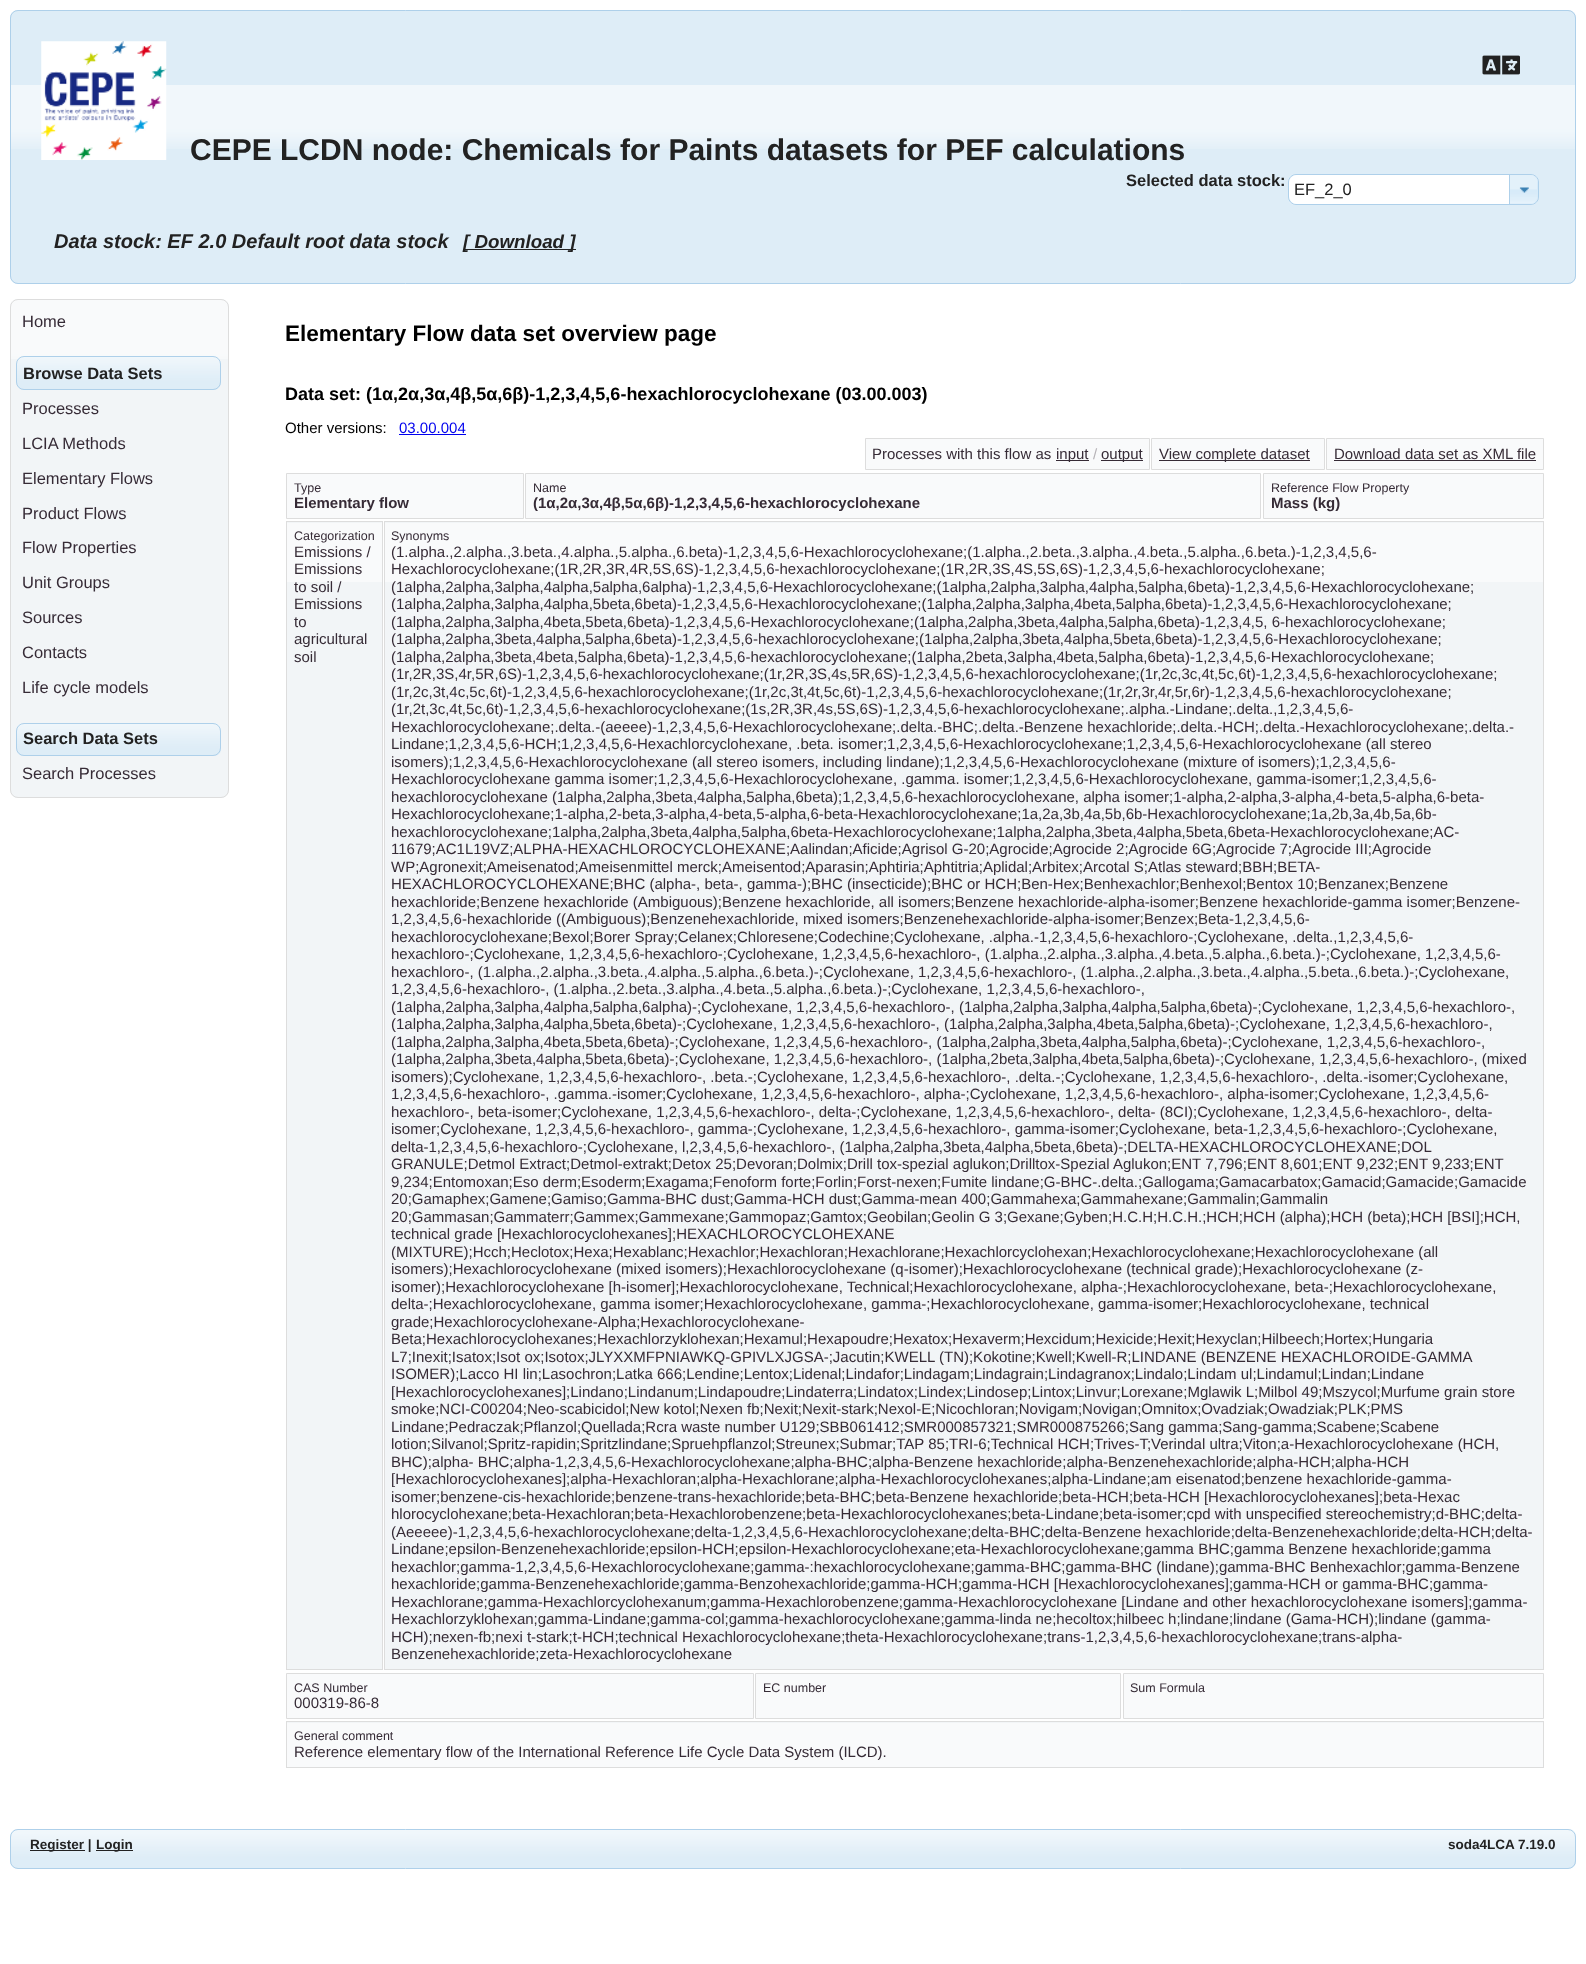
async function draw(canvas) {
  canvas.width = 1586
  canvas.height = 1964
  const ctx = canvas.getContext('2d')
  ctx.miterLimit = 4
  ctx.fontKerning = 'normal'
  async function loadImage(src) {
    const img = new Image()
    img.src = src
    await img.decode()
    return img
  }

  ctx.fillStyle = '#fff'
  ctx.fillRect(0, 0, 1586, 1964)
  ctx.fillStyle = '#deedf7'
  ctx.beginPath()
  ctx.roundRect(10, 10, 1566, 274, 8)
  ctx.fill()
  ctx.drawImage(await loadImage('image0.png'), 11, 85, 1564, 64)
  ctx.beginPath()
  ctx.roundRect(10.5, 10.5, 1565, 273, 7.5)
  ctx.strokeStyle = '#aed0ea'
  ctx.stroke()
  ctx.drawImage(await loadImage('image1.png'), 41, 41, 126, 119)
  ctx.drawImage(await loadImage('image2.png'), 1482, 55, 38, 20)
  ctx.font = 'bold 30px Liberation Sans'
  ctx.fillStyle = '#222'
  ctx.fillText('CEPE LCDN node: Chemicals for Paints datasets for PEF calculations', 190, 160)
  ctx.font = 'bold 16.5px Liberation Sans'
  ctx.fillText('Selected data stock:', 1126, 186)
  ctx.drawImage(await loadImage('image3.png'), 1288, 174, 251, 31)
  ctx.beginPath()
  ctx.roundRect(1288.5, 174.5, 250, 30, 7.5)
  ctx.stroke()
  ctx.fillStyle = '#fff'
  ctx.beginPath()
  ctx.roundRect(1289, 175, 231, 29, 8)
  ctx.fill()
  ctx.font = '16.5px Liberation Sans'
  ctx.fillStyle = '#222'
  ctx.fillText('EF_2_0', 1294, 195)
  ctx.fillStyle = '#d7ebf9'
  ctx.beginPath()
  ctx.roundRect(1509, 175, 29, 29, [0, 8, 8, 0])
  ctx.fill()
  ctx.drawImage(await loadImage('image4.png'), 1510, 175, 27, 29)
  ctx.fillStyle = '#aed0ea'
  ctx.fillRect(1509, 175, 1, 29)
  ctx.drawImage(await loadImage('image5.png'), 1519, 187, 10, 6)
  ctx.font = 'italic bold 20px Liberation Sans'
  ctx.fillStyle = '#222'
  ctx.fillText('Data stock: EF 2.0 Default root data stock', 54, 248)
  ctx.fillRect(464, 249, 112, 1)
  ctx.font = 'italic bold 18.75px Liberation Sans'
  ctx.fillText('[ Download ]', 463, 248)
  ctx.fillStyle = '#f2f5f7'
  ctx.beginPath()
  ctx.roundRect(10, 299, 219, 499, 8)
  ctx.fill()
  ctx.drawImage(await loadImage('image6.png'), 10, 300, 219, 59)
  ctx.beginPath()
  ctx.roundRect(10.5, 299.5, 218, 498, 7.5)
  ctx.strokeStyle = '#ddd'
  ctx.stroke()
  ctx.font = '16.5px Liberation Sans'
  ctx.fillStyle = '#362b36'
  ctx.fillText('Home', 22, 327)
  ctx.drawImage(await loadImage('image7.png'), 16, 356, 205, 34)
  ctx.beginPath()
  ctx.roundRect(16.5, 356.5, 204, 33, 7.5)
  ctx.strokeStyle = '#aed0ea'
  ctx.stroke()
  ctx.font = 'bold 16.5px Liberation Sans'
  ctx.fillStyle = '#222'
  ctx.fillText('Browse Data Sets', 23, 379)
  ctx.font = '16.5px Liberation Sans'
  ctx.fillStyle = '#362b36'
  ctx.fillText('Processes', 22, 414)
  ctx.fillText('LCIA Methods', 22, 449)
  ctx.fillText('Elementary Flows', 22, 484)
  ctx.fillText('Product Flows', 22, 519)
  ctx.fillText('Flow Properties', 22, 553)
  ctx.fillText('Unit Groups', 22, 588)
  ctx.fillText('Sources', 22, 623)
  ctx.fillText('Contacts', 22, 658)
  ctx.fillText('Life cycle models', 22, 693)
  ctx.drawImage(await loadImage('image8.png'), 16, 723, 205, 33)
  ctx.beginPath()
  ctx.roundRect(16.5, 723.5, 204, 32, 7.5)
  ctx.stroke()
  ctx.font = 'bold 16.5px Liberation Sans'
  ctx.fillStyle = '#222'
  ctx.fillText('Search Data Sets', 23, 744)
  ctx.font = '16.5px Liberation Sans'
  ctx.fillStyle = '#362b36'
  ctx.fillText('Search Processes', 22, 779)
  ctx.font = 'bold 22.5px Liberation Sans'
  ctx.fillStyle = '#000'
  ctx.fillText('Elementary Flow data set overview page', 285, 341)
  ctx.font = 'bold 18px Liberation Sans'
  ctx.fillText('Data set: (1α,2α,3α,4β,5α,6β)-1,2,3,4,5,6-hexachlorocyclohexane (03.00.003)', 285, 400)
  ctx.font = '15px Liberation Sans'
  ctx.fillText('Other versions:', 285, 433)
  ctx.fillStyle = '#00e'
  ctx.fillText('03.00.004', 399, 433)
  ctx.fillRect(399, 434, 67, 1)
  ctx.fillStyle = '#f9fafb'
  ctx.beginPath()
  ctx.rect(865.5, 438.5, 284, 31)
  ctx.fill()
  ctx.strokeStyle = '#ddd'
  ctx.stroke()
  ctx.fillStyle = '#362b36'
  ctx.fillText('Processes with this flow as', 872, 459)
  ctx.fillRect(1056, 460, 33, 1)
  ctx.fillText('input', 1056, 459)
  ctx.fillStyle = '#b5b2b6'
  ctx.fillText('/', 1093, 459)
  ctx.fillStyle = '#362b36'
  ctx.fillRect(1101, 460, 42, 1)
  ctx.fillText('output', 1101, 459)
  ctx.fillStyle = '#f9fafb'
  ctx.beginPath()
  ctx.rect(1151.5, 438.5, 173, 31)
  ctx.fill()
  ctx.stroke()
  ctx.fillStyle = '#362b36'
  ctx.fillRect(1159, 460, 151, 1)
  ctx.fillText('View complete dataset', 1159, 459)
  ctx.fillStyle = '#f9fafb'
  ctx.beginPath()
  ctx.rect(1326.5, 438.5, 217, 31)
  ctx.fill()
  ctx.stroke()
  ctx.fillStyle = '#362b36'
  ctx.fillText('Download data set as XML file', 1334, 459)
  ctx.fillRect(1334, 460, 202, 1)
  ctx.fillStyle = '#f9fafb'
  ctx.beginPath()
  ctx.rect(286.5, 473.5, 237, 45)
  ctx.fill()
  ctx.stroke()
  ctx.font = '12.5px Liberation Sans'
  ctx.fillStyle = '#362b36'
  ctx.fillText('Type', 294, 492)
  ctx.font = 'bold 15px Liberation Sans'
  ctx.fillText('Elementary flow', 294, 508)
  ctx.fillStyle = '#f9fafb'
  ctx.beginPath()
  ctx.rect(525.5, 473.5, 735, 45)
  ctx.fill()
  ctx.stroke()
  ctx.font = '12.5px Liberation Sans'
  ctx.fillStyle = '#362b36'
  ctx.fillText('Name', 533, 492)
  ctx.font = 'bold 15px Liberation Sans'
  ctx.fillText('(1α,2α,3α,4β,5α,6β)-1,2,3,4,5,6-hexachlorocyclohexane', 533, 508)
  ctx.fillStyle = '#f9fafb'
  ctx.beginPath()
  ctx.rect(1263.5, 473.5, 280, 45)
  ctx.fill()
  ctx.stroke()
  ctx.font = '12.5px Liberation Sans'
  ctx.fillStyle = '#362b36'
  ctx.fillText('Reference Flow Property', 1271, 492)
  ctx.font = 'bold 15px Liberation Sans'
  ctx.fillText('Mass (kg)', 1271, 508)
  ctx.fillStyle = '#f2f5f7'
  ctx.fillRect(287, 522, 95, 1147)
  ctx.fillStyle = '#f9fafb'
  ctx.fillRect(287, 523, 95, 59)
  ctx.strokeRect(286.5, 521.5, 96, 1148)
  ctx.font = '12.5px Liberation Sans'
  ctx.fillStyle = '#362b36'
  ctx.fillText('Categorization', 294, 540)
  ctx.font = '15px Liberation Sans'
  ctx.fillText('Emissions /', 294, 557)
  ctx.fillText('Emissions', 294, 574)
  ctx.fillText('to soil /', 294, 592)
  ctx.fillText('Emissions', 294, 609)
  ctx.fillText('to', 294, 627)
  ctx.fillText('agricultural', 294, 644)
  ctx.fillText('soil', 294, 662)
  ctx.fillStyle = '#f2f5f7'
  ctx.fillRect(385, 522, 1158, 1147)
  ctx.fillStyle = '#f9fafb'
  ctx.fillRect(385, 523, 1158, 59)
  ctx.strokeRect(384.5, 521.5, 1159, 1148)
  ctx.font = '12.5px Liberation Sans'
  ctx.fillStyle = '#362b36'
  ctx.fillText('Synonyms', 391, 540)
  ctx.font = '15px Liberation Sans'
  ctx.fillText('(1.alpha.,2.alpha.,3.beta.,4.alpha.,5.alpha.,6.beta)-1,2,3,4,5,6-Hexachlorocyclohexane;(1.alpha.,2.beta.,3.alpha.,4.beta.,5.alpha.,6.beta.)-1,2,3,4,5,6-', 391, 557)
  ctx.fillText('Hexachlorocyclohexane;(1R,2R,3R,4R,5S,6S)-1,2,3,4,5,6-hexachlorocyclohexane;(1R,2R,3S,4S,5S,6S)-1,2,3,4,5,6-hexachlorocyclohexane;', 391, 574)
  ctx.fillText('(1alpha,2alpha,3alpha,4alpha,5alpha,6alpha)-1,2,3,4,5,6-Hexachlorocyclohexane;(1alpha,2alpha,3alpha,4alpha,5alpha,6beta)-1,2,3,4,5,6-Hexachlorocyclohexane;', 391, 592)
  ctx.fillText('(1alpha,2alpha,3alpha,4alpha,5beta,6beta)-1,2,3,4,5,6-Hexachlorocyclohexane;(1alpha,2alpha,3alpha,4beta,5alpha,6beta)-1,2,3,4,5,6-Hexachlorocyclohexane;', 391, 609)
  ctx.fillText('(1alpha,2alpha,3alpha,4beta,5beta,6beta)-1,2,3,4,5,6-Hexachlorocyclohexane;(1alpha,2alpha,3beta,4alpha,5alpha,6beta)-1,2,3,4,5, 6-hexachlorocyclohexane;', 391, 627)
  ctx.fillText('(1alpha,2alpha,3beta,4alpha,5alpha,6beta)-1,2,3,4,5,6-hexachlorocyclohexane;(1alpha,2alpha,3beta,4alpha,5beta,6beta)-1,2,3,4,5,6-Hexachlorocyclohexane;', 391, 644)
  ctx.fillText('(1alpha,2alpha,3beta,4beta,5alpha,6beta)-1,2,3,4,5,6-hexachlorocyclohexane;(1alpha,2beta,3alpha,4beta,5alpha,6beta)-1,2,3,4,5,6-Hexachlorocyclohexane;', 391, 662)
  ctx.fillText('(1r,2R,3S,4r,5R,6S)-1,2,3,4,5,6-hexachlorocyclohexane;(1r,2R,3S,4s,5R,6S)-1,2,3,4,5,6-hexachlorocyclohexane;(1r,2c,3c,4t,5c,6t)-1,2,3,4,5,6-hexachlorocyclohexane;', 391, 679)
  ctx.fillText('(1r,2c,3t,4c,5c,6t)-1,2,3,4,5,6-hexachlorocyclohexane;(1r,2c,3t,4t,5c,6t)-1,2,3,4,5,6-hexachlorocyclohexane;(1r,2r,3r,4r,5r,6r)-1,2,3,4,5,6-hexachlorocyclohexane;', 391, 697)
  ctx.fillText('(1r,2t,3c,4t,5c,6t)-1,2,3,4,5,6-hexachlorocyclohexane;(1s,2R,3R,4s,5S,6S)-1,2,3,4,5,6-hexachlorocyclohexane;.alpha.-Lindane;.delta.,1,2,3,4,5,6-', 391, 714)
  ctx.fillText('Hexachlorocyclohexane;.delta.-(aeeee)-1,2,3,4,5,6-Hexachlorocyclohexane;.delta.-BHC;.delta.-Benzene hexachloride;.delta.-HCH;.delta.-Hexachlorocyclohexane;.delta.-', 391, 732)
  ctx.fillText('Lindane;1,2,3,4,5,6-HCH;1,2,3,4,5,6-Hexachlorcyclohexane, .beta. isomer;1,2,3,4,5,6-Hexachlorocyclohexane;1,2,3,4,5,6-Hexachlorocyclohexane (all stereo', 391, 749)
  ctx.fillText('isomers);1,2,3,4,5,6-Hexachlorocyclohexane (all stereo isomers, including lindane);1,2,3,4,5,6-Hexachlorocyclohexane (mixture of isomers);1,2,3,4,5,6-', 391, 767)
  ctx.fillText('Hexachlorocyclohexane gamma isomer;1,2,3,4,5,6-Hexachlorocyclohexane, .gamma. isomer;1,2,3,4,5,6-Hexachlorocyclohexane, gamma-isomer;1,2,3,4,5,6-', 391, 784)
  ctx.fillText('hexachlorocyclohexane (1alpha,2alpha,3beta,4alpha,5alpha,6beta);1,2,3,4,5,6-hexachlorocyclohexane, alpha isomer;1-alpha,2-alpha,3-alpha,4-beta,5-alpha,6-beta-', 391, 802)
  ctx.fillText('Hexachlorocyclohexane;1-alpha,2-beta,3-alpha,4-beta,5-alpha,6-beta-Hexachlorocyclohexane;1a,2a,3b,4a,5b,6b-Hexachlorocyclohexane;1a,2b,3a,4b,5a,6b-', 391, 819)
  ctx.fillText('hexachlorocyclohexane;1alpha,2alpha,3beta,4alpha,5alpha,6beta-Hexachlorocyclohexane;1alpha,2alpha,3beta,4alpha,5beta,6beta-Hexachlorocyclohexane;AC-', 391, 837)
  ctx.fillText('11679;AC1L19VZ;ALPHA-HEXACHLOROCYCLOHEXANE;Aalindan;Aficide;Agrisol G-20;Agrocide;Agrocide 2;Agrocide 6G;Agrocide 7;Agrocide III;Agrocide', 391, 854)
  ctx.fillText('WP;Agronexit;Ameisenatod;Ameisenmittel merck;Ameisentod;Aparasin;Aphtiria;Aphtitria;Aplidal;Arbitex;Arcotal S;Atlas steward;BBH;BETA-', 391, 872)
  ctx.fillText('HEXACHLOROCYCLOHEXANE;BHC (alpha-, beta-, gamma-);BHC (insecticide);BHC or HCH;Ben-Hex;Benhexachlor;Benhexol;Bentox 10;Benzanex;Benzene', 391, 889)
  ctx.fillText('hexachloride;Benzene hexachloride (Ambiguous);Benzene hexachloride, all isomers;Benzene hexachloride-alpha-isomer;Benzene hexachloride-gamma isomer;Benzene-', 391, 907)
  ctx.fillText('1,2,3,4,5,6-hexachloride ((Ambiguous);Benzenehexachloride, mixed isomers;Benzenehexachloride-alpha-isomer;Benzex;Beta-1,2,3,4,5,6-', 391, 924)
  ctx.fillText('hexachlorocyclohexane;Bexol;Borer Spray;Celanex;Chloresene;Codechine;Cyclohexane, .alpha.-1,2,3,4,5,6-hexachloro-;Cyclohexane, .delta.,1,2,3,4,5,6-', 391, 942)
  ctx.fillText('hexachloro-;Cyclohexane, 1,2,3,4,5,6-hexachloro-;Cyclohexane, 1,2,3,4,5,6-hexachloro-, (1.alpha.,2.alpha.,3.alpha.,4.beta.,5.alpha.,6.beta.)-;Cyclohexane, 1,2,3,4,5,6-', 391, 959)
  ctx.fillText('hexachloro-, (1.alpha.,2.alpha.,3.beta.,4.alpha.,5.alpha.,6.beta.)-;Cyclohexane, 1,2,3,4,5,6-hexachloro-, (1.alpha.,2.alpha.,3.beta.,4.alpha.,5.beta.,6.beta.)-;Cyclohexane,', 391, 977)
  ctx.fillText('1,2,3,4,5,6-hexachloro-, (1.alpha.,2.beta.,3.alpha.,4.beta.,5.alpha.,6.beta.)-;Cyclohexane, 1,2,3,4,5,6-hexachloro-,', 391, 994)
  ctx.fillText('(1alpha,2alpha,3alpha,4alpha,5alpha,6alpha)-;Cyclohexane, 1,2,3,4,5,6-hexachloro-, (1alpha,2alpha,3alpha,4alpha,5alpha,6beta)-;Cyclohexane, 1,2,3,4,5,6-hexachloro-,', 391, 1012)
  ctx.fillText('(1alpha,2alpha,3alpha,4alpha,5beta,6beta)-;Cyclohexane, 1,2,3,4,5,6-hexachloro-, (1alpha,2alpha,3alpha,4beta,5alpha,6beta)-;Cyclohexane, 1,2,3,4,5,6-hexachloro-,', 391, 1029)
  ctx.fillText('(1alpha,2alpha,3alpha,4beta,5beta,6beta)-;Cyclohexane, 1,2,3,4,5,6-hexachloro-, (1alpha,2alpha,3beta,4alpha,5alpha,6beta)-;Cyclohexane, 1,2,3,4,5,6-hexachloro-,', 391, 1047)
  ctx.fillText('(1alpha,2alpha,3beta,4alpha,5beta,6beta)-;Cyclohexane, 1,2,3,4,5,6-hexachloro-, (1alpha,2beta,3alpha,4beta,5alpha,6beta)-;Cyclohexane, 1,2,3,4,5,6-hexachloro-, (mixed', 391, 1064)
  ctx.fillText('isomers);Cyclohexane, 1,2,3,4,5,6-hexachloro-, .beta.-;Cyclohexane, 1,2,3,4,5,6-hexachloro-, .delta.-;Cyclohexane, 1,2,3,4,5,6-hexachloro-, .delta.-isomer;Cyclohexane,', 391, 1082)
  ctx.fillText('1,2,3,4,5,6-hexachloro-, .gamma.-isomer;Cyclohexane, 1,2,3,4,5,6-hexachloro-, alpha-;Cyclohexane, 1,2,3,4,5,6-hexachloro-, alpha-isomer;Cyclohexane, 1,2,3,4,5,6-', 391, 1099)
  ctx.fillText('hexachloro-, beta-isomer;Cyclohexane, 1,2,3,4,5,6-hexachloro-, delta-;Cyclohexane, 1,2,3,4,5,6-hexachloro-, delta- (8CI);Cyclohexane, 1,2,3,4,5,6-hexachloro-, delta-', 391, 1117)
  ctx.fillText('isomer;Cyclohexane, 1,2,3,4,5,6-hexachloro-, gamma-;Cyclohexane, 1,2,3,4,5,6-hexachloro-, gamma-isomer;Cyclohexane, beta-1,2,3,4,5,6-hexachloro-;Cyclohexane,', 391, 1134)
  ctx.fillText('delta-1,2,3,4,5,6-hexachloro-;Cyclohexane, l,2,3,4,5,6-hexachloro-, (1alpha,2alpha,3beta,4alpha,5beta,6beta)-;DELTA-HEXACHLOROCYCLOHEXANE;DOL', 391, 1152)
  ctx.fillText('GRANULE;Detmol Extract;Detmol-extrakt;Detox 25;Devoran;Dolmix;Drill tox-spezial aglukon;Drilltox-Spezial Aglukon;ENT 7,796;ENT 8,601;ENT 9,232;ENT 9,233;ENT', 391, 1169)
  ctx.fillText('9,234;Entomoxan;Eso derm;Esoderm;Exagama;Fenoform forte;Forlin;Forst-nexen;Fumite lindane;G-BHC-.delta.;Gallogama;Gamacarbatox;Gamacid;Gamacide;Gamacide', 391, 1187)
  ctx.fillText('20;Gamaphex;Gamene;Gamiso;Gamma-BHC dust;Gamma-HCH dust;Gamma-mean 400;Gammahexa;Gammahexane;Gammalin;Gammalin', 391, 1204)
  ctx.fillText('20;Gammasan;Gammaterr;Gammex;Gammexane;Gammopaz;Gamtox;Geobilan;Geolin G 3;Gexane;Gyben;H.C.H;H.C.H.;HCH;HCH (alpha);HCH (beta);HCH [BSI];HCH,', 391, 1222)
  ctx.fillText('technical grade [Hexachlorocyclohexanes];HEXACHLOROCYCLOHEXANE', 391, 1239)
  ctx.fillText('(MIXTURE);Hcch;Heclotox;Hexa;Hexablanc;Hexachlor;Hexachloran;Hexachlorane;Hexachlorcyclohexan;Hexachlorocyclohexane;Hexachlorocyclohexane (all', 391, 1257)
  ctx.fillText('isomers);Hexachlorocyclohexane (mixed isomers);Hexachlorocyclohexane (q-isomer);Hexachlorocyclohexane (technical grade);Hexachlorocyclohexane (z-', 391, 1274)
  ctx.fillText('isomer);Hexachlorocyclohexane [h-isomer];Hexachlorocyclohexane, Technical;Hexachlorocyclohexane, alpha-;Hexachlorocyclohexane, beta-;Hexachlorocyclohexane,', 391, 1292)
  ctx.fillText('delta-;Hexachlorocyclohexane, gamma isomer;Hexachlorocyclohexane, gamma-;Hexachlorocyclohexane, gamma-isomer;Hexachlorocyclohexane, technical', 391, 1309)
  ctx.fillText('grade;Hexachlorocyclohexane-Alpha;Hexachlorocyclohexane-', 391, 1327)
  ctx.fillText('Beta;Hexachlorocyclohexanes;Hexachlorzyklohexan;Hexamul;Hexapoudre;Hexatox;Hexaverm;Hexcidum;Hexicide;Hexit;Hexyclan;Hilbeech;Hortex;Hungaria', 391, 1344)
  ctx.fillText('L7;Inexit;Isatox;Isot ox;Isotox;JLYXXMFPNIAWKQ-GPIVLXJGSA-;Jacutin;KWELL (TN);Kokotine;Kwell;Kwell-R;LINDANE (BENZENE HEXACHLOROIDE-GAMMA', 391, 1362)
  ctx.fillText('ISOMER);Lacco HI lin;Lasochron;Latka 666;Lendine;Lentox;Lidenal;Lindafor;Lindagam;Lindagrain;Lindagranox;Lindalo;Lindam ul;Lindamul;Lindan;Lindane', 391, 1379)
  ctx.fillText('[Hexachlorocyclohexanes];Lindano;Lindanum;Lindapoudre;Lindaterra;Lindatox;Lindex;Lindosep;Lintox;Linvur;Lorexane;Mglawik L;Milbol 49;Mszycol;Murfume grain store', 391, 1397)
  ctx.fillText('smoke;NCI-C00204;Neo-scabicidol;New kotol;Nexen fb;Nexit;Nexit-stark;Nexol-E;Nicochloran;Novigam;Novigan;Omnitox;Ovadziak;Owadziak;PLK;PMS', 391, 1414)
  ctx.fillText('Lindane;Pedraczak;Pflanzol;Quellada;Rcra waste number U129;SBB061412;SMR000857321;SMR000875266;Sang gamma;Sang-gamma;Scabene;Scabene', 391, 1432)
  ctx.fillText('lotion;Silvanol;Spritz-rapidin;Spritzlindane;Spruehpflanzol;Streunex;Submar;TAP 85;TRI-6;Technical HCH;Trives-T;Verindal ultra;Viton;a-Hexachlorocyclohexane (HCH,', 391, 1449)
  ctx.fillText('BHC);alpha- BHC;alpha-1,2,3,4,5,6-Hexachlorocyclohexane;alpha-BHC;alpha-Benzene hexachloride;alpha-Benzenehexachloride;alpha-HCH;alpha-HCH', 391, 1467)
  ctx.fillText('[Hexachlorocyclohexanes];alpha-Hexachloran;alpha-Hexachlorane;alpha-Hexachlorocyclohexanes;alpha-Lindane;am eisenatod;benzene hexachloride-gamma-', 391, 1484)
  ctx.fillText('isomer;benzene-cis-hexachloride;benzene-trans-hexachloride;beta-BHC;beta-Benzene hexachloride;beta-HCH;beta-HCH [Hexachlorocyclohexanes];beta-Hexac', 391, 1502)
  ctx.fillText('hlorocyclohexane;beta-Hexachloran;beta-Hexachlorobenzene;beta-Hexachlorocyclohexanes;beta-Lindane;beta-isomer;cpd with unspecified stereochemistry;d-BHC;delta-', 391, 1519)
  ctx.fillText('(Aeeeee)-1,2,3,4,5,6-hexachlorocyclohexane;delta-1,2,3,4,5,6-Hexachlorocyclohexane;delta-BHC;delta-Benzene hexachloride;delta-Benzenehexachloride;delta-HCH;delta-', 391, 1537)
  ctx.fillText('Lindane;epsilon-Benzenehexachloride;epsilon-HCH;epsilon-Hexachlorocyclohexane;eta-Hexachlorocyclohexane;gamma BHC;gamma Benzene hexachloride;gamma', 391, 1554)
  ctx.fillText('hexachlor;gamma-1,2,3,4,5,6-Hexachlorocyclohexane;gamma-:hexachlorocyclohexane;gamma-BHC;gamma-BHC (lindane);gamma-BHC Benhexachlor;gamma-Benzene', 391, 1572)
  ctx.fillText('hexachloride;gamma-Benzenehexachloride;gamma-Benzohexachloride;gamma-HCH;gamma-HCH [Hexachlorocyclohexanes];gamma-HCH or gamma-BHC;gamma-', 391, 1589)
  ctx.fillText('Hexachlorane;gamma-Hexachlorcyclohexanum;gamma-Hexachlorobenzene;gamma-Hexachlorocyclohexane [Lindane and other hexachlorocyclohexane isomers];gamma-', 391, 1607)
  ctx.fillText('Hexachlorzyklohexan;gamma-Lindane;gamma-col;gamma-hexachlorocyclohexane;gamma-linda ne;hecoltox;hilbeec h;lindane;lindane (Gama-HCH);lindane (gamma-', 391, 1624)
  ctx.fillText('HCH);nexen-fb;nexi t-stark;t-HCH;technical Hexachlorocyclohexane;theta-Hexachlorocyclohexane;trans-1,2,3,4,5,6-hexachlorocyclohexane;trans-alpha-', 391, 1642)
  ctx.fillText('Benzenehexachloride;zeta-Hexachlorocyclohexane', 391, 1659)
  ctx.fillStyle = '#f9fafb'
  ctx.beginPath()
  ctx.rect(286.5, 1673.5, 467, 45)
  ctx.fill()
  ctx.stroke()
  ctx.font = '12.5px Liberation Sans'
  ctx.fillStyle = '#362b36'
  ctx.fillText('CAS Number', 294, 1692)
  ctx.font = '15px Liberation Sans'
  ctx.fillText('000319-86-8', 294, 1708)
  ctx.fillStyle = '#f9fafb'
  ctx.beginPath()
  ctx.rect(755.5, 1673.5, 365, 45)
  ctx.fill()
  ctx.stroke()
  ctx.font = '12.5px Liberation Sans'
  ctx.fillStyle = '#362b36'
  ctx.fillText('EC number', 763, 1692)
  ctx.fillStyle = '#f9fafb'
  ctx.beginPath()
  ctx.rect(1123.5, 1673.5, 420, 45)
  ctx.fill()
  ctx.stroke()
  ctx.fillStyle = '#362b36'
  ctx.fillText('Sum Formula', 1130, 1692)
  ctx.fillStyle = '#f2f5f7'
  ctx.fillRect(287, 1722, 1256, 1)
  ctx.fillStyle = '#f9fafb'
  ctx.fillRect(287, 1723, 1256, 44)
  ctx.strokeRect(286.5, 1721.5, 1257, 46)
  ctx.fillStyle = '#362b36'
  ctx.fillText('General comment', 294, 1740)
  ctx.font = '15px Liberation Sans'
  ctx.fillText('Reference elementary flow of the International Reference Life Cycle Data System (ILCD).', 294, 1757)
  ctx.drawImage(await loadImage('image9.png'), 10, 1829, 1566, 40)
  ctx.beginPath()
  ctx.roundRect(10.5, 1829.5, 1565, 39, 7.5)
  ctx.strokeStyle = '#aed0ea'
  ctx.stroke()
  ctx.fillStyle = '#222'
  ctx.fillRect(30, 1850, 55, 1)
  ctx.font = 'bold 13.5px Liberation Sans'
  ctx.fillText('Register |', 30, 1849)
  ctx.fillRect(96, 1850, 37, 1)
  ctx.fillText('Login', 96, 1849)
  ctx.fillText('soda4LCA 7.19.0', 1448, 1849)
}

draw(document.querySelector('canvas'))
